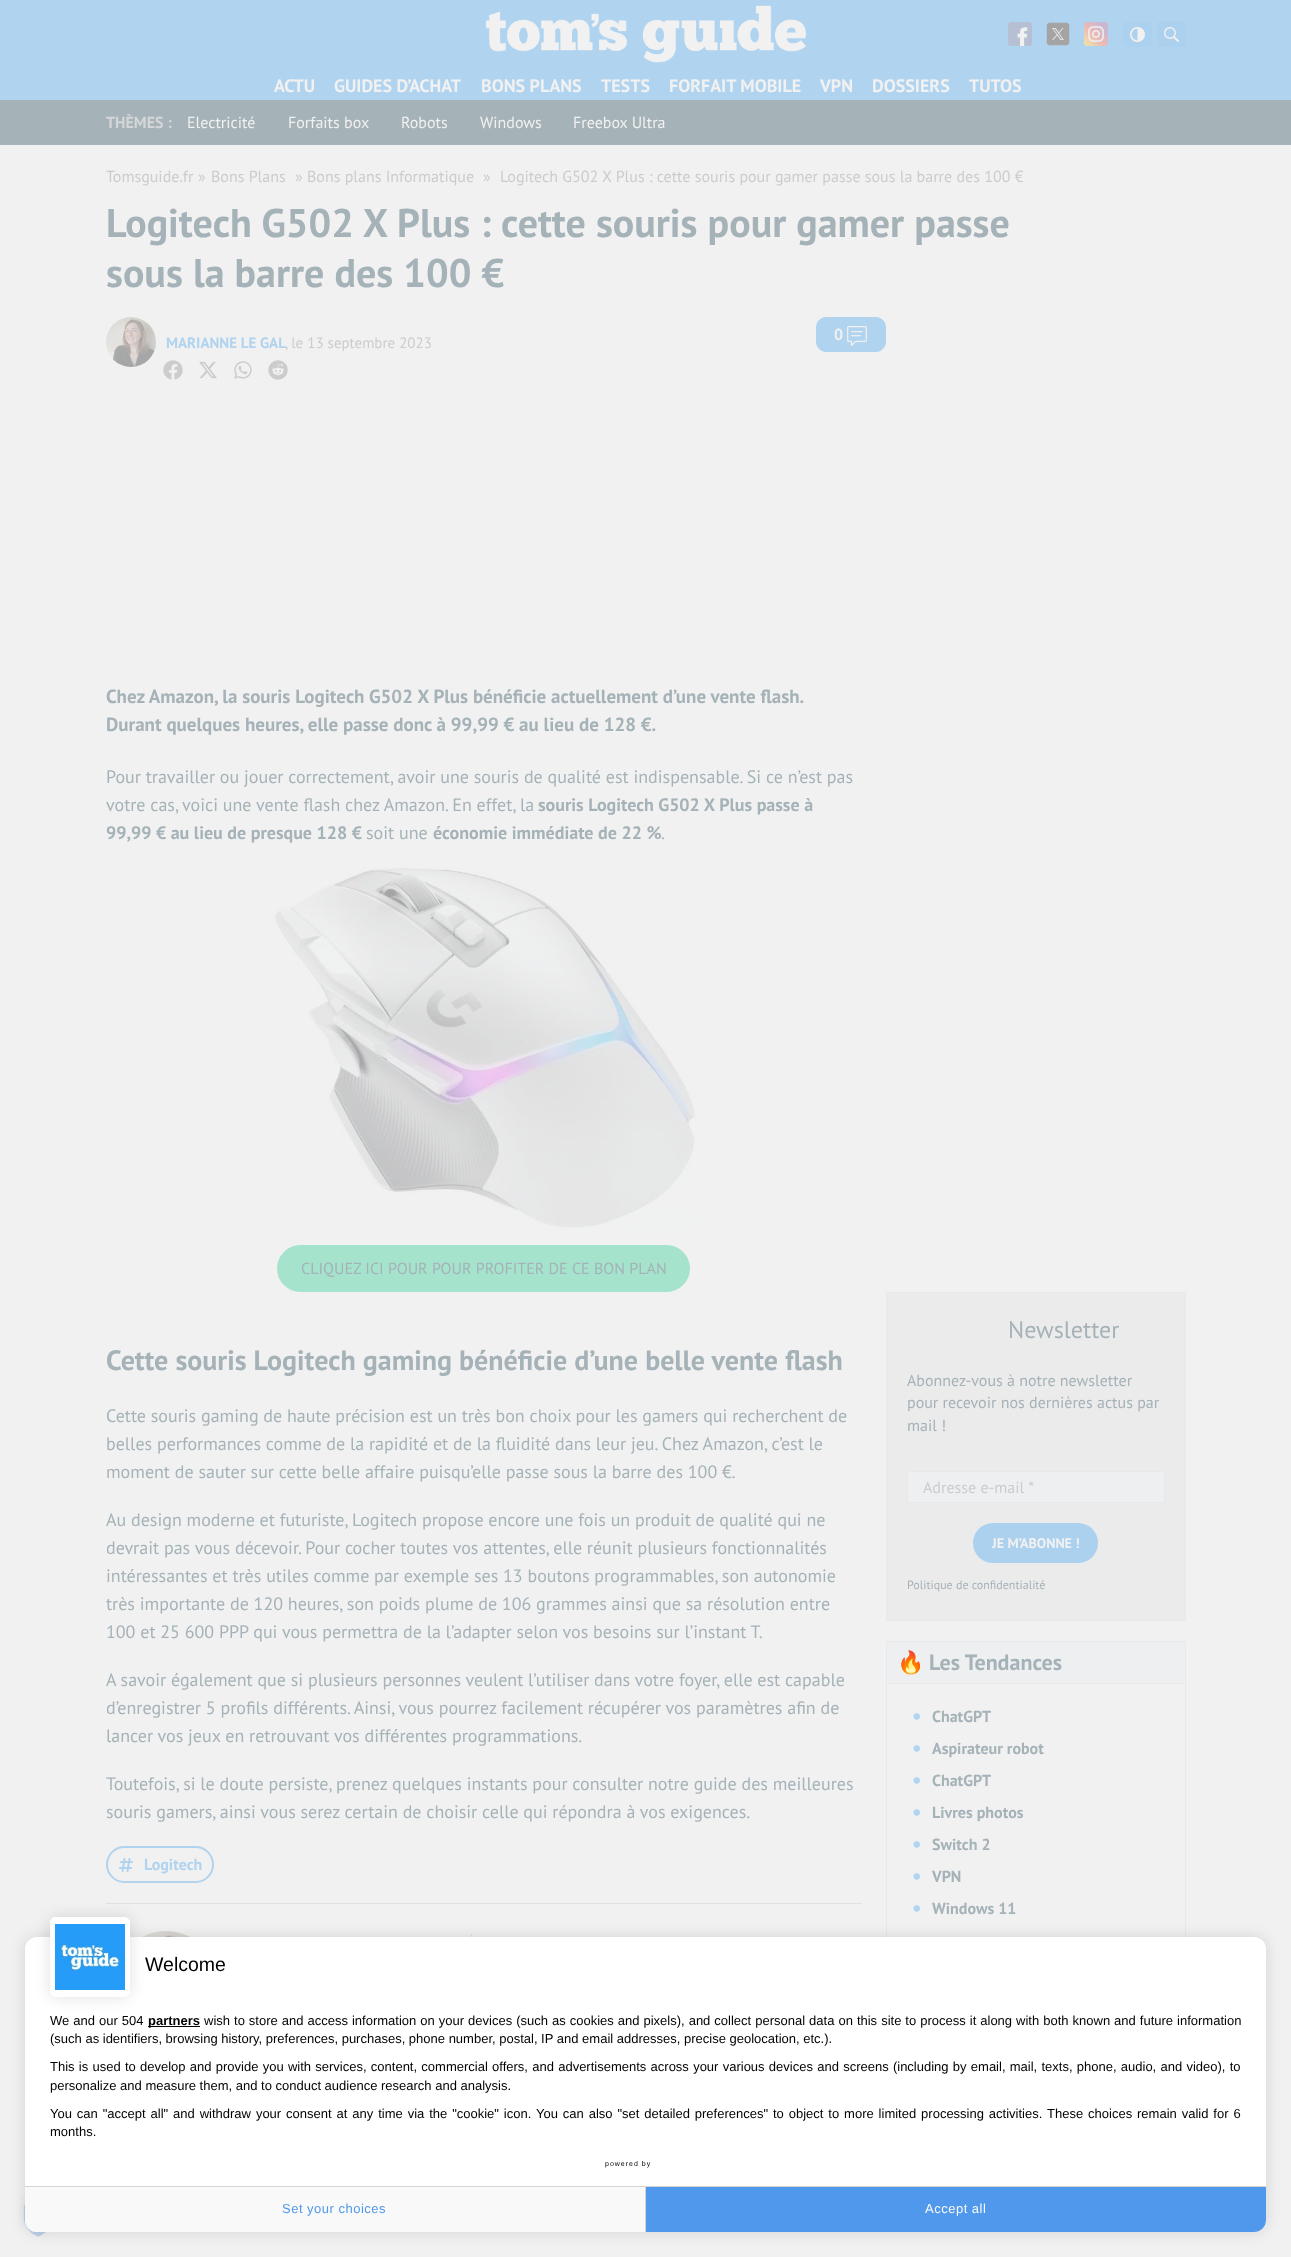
async function draw(canvas) {
  canvas.width = 1291
  canvas.height = 2257
  const ctx = canvas.getContext('2d')
  ctx.miterLimit = 4
  ctx.fontKerning = 'normal'
  async function loadImage(src) {
    const img = new Image()
    img.src = src
    await img.decode()
    return img
  }

  ctx.fillStyle = '#f1f1f1'
  ctx.fillRect(0, 0, 1291, 2257)
  ctx.fillStyle = '#b0d3ef'
  ctx.fillRect(0, 0, 1291, 100)
  ctx.drawImage(await loadImage('image0.png'), 485, 5, 321, 58)
  ctx.drawImage(await loadImage('image1.png'), 1008, 22, 24, 24)
  ctx.drawImage(await loadImage('image2.png'), 1046, 22, 24, 24)
  ctx.drawImage(await loadImage('image3.png'), 1084, 22, 24, 24)
  ctx.fillStyle = '#acd1ef'
  ctx.beginPath()
  ctx.roundRect(1123, 22, 29, 25, 4)
  ctx.fill()
  ctx.drawImage(await loadImage('image4.png'), 1130, 27, 15, 15)
  ctx.beginPath()
  ctx.roundRect(1157, 21, 29, 26, 4)
  ctx.fill()
  ctx.drawImage(await loadImage('image5.png'), 1164, 27, 15, 15)
  ctx.font = 'bold 18px PT Sans'
  ctx.fillStyle = '#f1f1f1'
  ctx.fillText('ACTU', 274, 92)
  ctx.fillText('GUIDES D’ACHAT', 334, 92)
  ctx.fillText('BONS PLANS', 481, 92)
  ctx.fillText('TESTS', 601, 92)
  ctx.fillText('FORFAIT MOBILE', 669, 92)
  ctx.fillText('VPN', 820, 92)
  ctx.fillText('DOSSIERS', 872, 92)
  ctx.fillText('TUTOS', 969, 92)
  ctx.fillStyle = '#a5b2b8'
  ctx.fillRect(0, 100, 1291, 45)
  ctx.font = 'bold 16px PT Sans'
  ctx.fillStyle = '#d5d6d7'
  ctx.fillText('THÈMES :', 106, 128)
  ctx.font = '16px PT Sans'
  ctx.fillStyle = '#f1f1f1'
  ctx.fillText('Electricité', 187, 128)
  ctx.fillText('Forfaits box', 288, 128)
  ctx.fillText('Robots', 401, 128)
  ctx.fillText('Windows', 480, 128)
  ctx.fillText('Freebox Ultra', 573, 128)
  ctx.fillStyle = '#ccc'
  ctx.fillText('Tomsguide.fr', 106, 182)
  ctx.fillText('»', 198, 182)
  ctx.fillText('Bons Plans', 211, 182)
  ctx.fillText('»', 295, 182)
  ctx.fillText('Bons plans Informatique', 307, 182)
  ctx.fillText('»', 483, 182)
  ctx.fillText('Logitech G502 X Plus : cette souris pour gamer passe sous la barre des 100 €', 500, 182)
  ctx.font = 'bold 40px PT Sans'
  ctx.fillStyle = '#a5b2b8'
  ctx.fillText('Logitech G502 X Plus : cette souris pour gamer passe', 106, 237)
  ctx.fillText('sous la barre des 100 €', 106, 287)
  ctx.fillStyle = '#b0d3ef'
  ctx.beginPath()
  ctx.roundRect(816.5, 317.5, 69, 34, 9.5)
  ctx.fill()
  ctx.strokeStyle = '#b0d3ef'
  ctx.stroke()
  ctx.font = 'bold 16px PT Sans'
  ctx.fillStyle = '#f1f1f1'
  ctx.fillText('0', 834, 340)
  ctx.drawImage(await loadImage('image6.png'), 847, 326, 20, 20)
  ctx.drawImage(await loadImage('image7.png'), 106, 317, 50, 50)
  ctx.font = 'bold 15px PT Sans'
  ctx.fillStyle = '#b0d3ef'
  ctx.fillText('MARIANNE LE GAL', 166, 348)
  ctx.font = '15px PT Sans'
  ctx.fillStyle = '#ccc'
  ctx.fillText(', le 13 septembre 2023', 285, 348)
  ctx.drawImage(await loadImage('image8.png'), 163, 360, 20, 20)
  ctx.drawImage(await loadImage('image9.png'), 199, 361, 18, 18)
  ctx.drawImage(await loadImage('image10.png'), 234, 361, 18, 18)
  ctx.drawImage(await loadImage('image11.png'), 268, 360, 20, 20)
  ctx.font = 'bold 19px PT Sans'
  ctx.fillStyle = '#a5b2b8'
  ctx.fillText('Chez Amazon, la souris Logitech G502 X Plus bénéficie actuellement d’une vente flash.', 106, 703)
  ctx.fillText('Durant quelques heures, elle passe donc à 99,99 € au lieu de 128 €.', 106, 731)
  ctx.font = '18px PT Sans'
  ctx.fillText('Pour travailler ou jouer correctement, avoir une souris de qualité est indispensable. Si ce n’est pas', 106, 783)
  ctx.fillText('votre cas, voici une vente flash chez Amazon. En effet, la', 106, 811)
  ctx.font = 'bold 18px PT Sans'
  ctx.fillText('souris Logitech G502 X Plus passe à', 538, 811)
  ctx.fillText('99,99 € au lieu de presque 128 €', 106, 839)
  ctx.font = '18px PT Sans'
  ctx.fillText('soit une', 366, 839)
  ctx.font = 'bold 18px PT Sans'
  ctx.fillText('économie immédiate de 22 %', 433, 839)
  ctx.font = '18px PT Sans'
  ctx.fillText('.', 661, 839)
  ctx.drawImage(await loadImage('image12.png'), 275, 867, 424, 364)
  ctx.fillStyle = '#a5e3cc'
  ctx.beginPath()
  ctx.roundRect(277, 1245, 413, 47, 23.5)
  ctx.fill()
  ctx.font = '16px PT Sans'
  ctx.fillStyle = '#a5b2b8'
  ctx.fillText('CLIQUEZ ICI POUR POUR PROFITER DE CE BON PLAN', 301, 1274)
  ctx.font = 'bold 28px PT Sans'
  ctx.fillText('Cette souris Logitech gaming bénéficie d’une belle vente flash', 106, 1370)
  ctx.font = '18px PT Sans'
  ctx.fillText('Cette souris gaming de haute précision est un très bon choix pour les gamers qui recherchent de', 106, 1422)
  ctx.fillText('belles performances comme de la rapidité et de la fluidité dans leur jeu. Chez Amazon, c’est le', 106, 1450)
  ctx.fillText('moment de sauter sur cette belle affaire puisqu’elle passe sous la barre des 100 €.', 106, 1478)
  ctx.fillText('Au design moderne et futuriste, Logitech propose encore une fois un produit de qualité qui ne', 106, 1526)
  ctx.fillText('devrait pas vous décevoir. Pour cocher toutes vos attentes, elle réunit plusieurs fonctionnalités', 106, 1554)
  ctx.fillText('intéressantes et très utiles comme par exemple ses 13 boutons programmables, son autonomie', 106, 1582)
  ctx.fillText('très importante de 120 heures, son poids plume de 106 grammes ainsi que sa résolution entre', 106, 1610)
  ctx.fillText('100 et 25 600 PPP qui vous permettra de la l’adapter selon vos besoins sur l’instant T.', 106, 1638)
  ctx.fillText('A savoir également que si plusieurs personnes veulent l’utiliser dans votre foyer, elle est capable', 106, 1686)
  ctx.fillText('d’enregistrer 5 profils différents. Ainsi, vous pourrez facilement récupérer vos paramètres afin de', 106, 1714)
  ctx.fillText('lancer vos jeux en retrouvant vos différentes programmations.', 106, 1742)
  ctx.fillText('Toutefois, si le doute persiste, prenez quelques instants pour consulter notre guide des meilleures', 106, 1790)
  ctx.fillText('souris gamers, ainsi vous serez certain de choisir celle qui répondra à vos exigences.', 106, 1818)
  ctx.beginPath()
  ctx.roundRect(107, 1847, 106, 35, 17.5)
  ctx.lineWidth = 2
  ctx.stroke()
  ctx.drawImage(await loadImage('image13.png'), 119, 1858, 14, 14)
  ctx.font = 'bold 16px PT Sans'
  ctx.fillStyle = '#b0d3ef'
  ctx.fillText('Logitech', 144, 1870)
  ctx.fillStyle = '#e1e1e1'
  ctx.fillRect(106, 1903, 756, 1)
  ctx.drawImage(await loadImage('image14.png'), 142, 1931, 48, 6)
  ctx.fillRect(471, 1934, 1, 3)
  ctx.strokeStyle = '#e7e8e9'
  ctx.lineWidth = 1
  ctx.strokeRect(886.5, 1292.5, 299, 328)
  ctx.fillStyle = '#ebebeb'
  ctx.fillRect(887, 1293, 298, 327)
  ctx.font = '24px PT Sans'
  ctx.fillStyle = '#a5b2b8'
  ctx.fillText('Newsletter', 1008, 1338)
  ctx.font = '16px PT Sans'
  ctx.fillText('Abonnez-vous à notre newsletter', 907, 1386)
  ctx.fillText('pour recevoir nos dernières actus par', 907, 1408)
  ctx.fillText('mail !', 907, 1431)
  ctx.fillStyle = '#eeeff0'
  ctx.beginPath()
  ctx.rect(907.5, 1471.5, 257, 31)
  ctx.fill()
  ctx.stroke()
  ctx.fillStyle = '#ccc'
  ctx.fillText('Adresse e-mail *', 923, 1493)
  ctx.fillStyle = '#acd1ef'
  ctx.beginPath()
  ctx.roundRect(973, 1523, 125, 40, 20)
  ctx.fill()
  ctx.font = 'bold 14px PT Sans'
  ctx.fillStyle = '#f1f1f1'
  ctx.fillText('JE M’ABONNE !', 992, 1548)
  ctx.font = '12px PT Sans'
  ctx.fillStyle = '#a5b2b8'
  ctx.fillText('Politique de confidentialité', 907, 1589)
  ctx.strokeRect(886.5, 1641.5, 299, 339)
  ctx.fillStyle = '#eeeff0'
  ctx.fillRect(887, 1642, 298, 41)
  ctx.font = 'bold 22px Noto Color Emoji'
  ctx.fillStyle = '#a5b2b8'
  ctx.fillText('🔥', 897, 1670)
  ctx.font = 'bold 22px PT Sans'
  ctx.fillText('Les Tendances', 929, 1670)
  ctx.fillStyle = '#e7e8e9'
  ctx.fillRect(887, 1683, 298, 1)
  ctx.font = 'bold 21px PT Sans'
  ctx.fillStyle = '#b0d3ef'
  ctx.fillText('•', 912, 1723)
  ctx.font = 'bold 16px PT Sans'
  ctx.fillStyle = '#a5b2b8'
  ctx.fillText('ChatGPT', 932, 1722)
  ctx.font = 'bold 21px PT Sans'
  ctx.fillStyle = '#b0d3ef'
  ctx.fillText('•', 912, 1755)
  ctx.font = 'bold 16px PT Sans'
  ctx.fillStyle = '#a5b2b8'
  ctx.fillText('Aspirateur robot', 932, 1754)
  ctx.font = 'bold 21px PT Sans'
  ctx.fillStyle = '#b0d3ef'
  ctx.fillText('•', 912, 1787)
  ctx.font = 'bold 16px PT Sans'
  ctx.fillStyle = '#a5b2b8'
  ctx.fillText('ChatGPT', 932, 1786)
  ctx.font = 'bold 21px PT Sans'
  ctx.fillStyle = '#b0d3ef'
  ctx.fillText('•', 912, 1819)
  ctx.font = 'bold 16px PT Sans'
  ctx.fillStyle = '#a5b2b8'
  ctx.fillText('Livres photos', 932, 1818)
  ctx.font = 'bold 21px PT Sans'
  ctx.fillStyle = '#b0d3ef'
  ctx.fillText('•', 912, 1851)
  ctx.font = 'bold 16px PT Sans'
  ctx.fillStyle = '#a5b2b8'
  ctx.fillText('Switch 2', 932, 1850)
  ctx.font = 'bold 21px PT Sans'
  ctx.fillStyle = '#b0d3ef'
  ctx.fillText('•', 912, 1883)
  ctx.font = 'bold 16px PT Sans'
  ctx.fillStyle = '#a5b2b8'
  ctx.fillText('VPN', 932, 1882)
  ctx.font = 'bold 21px PT Sans'
  ctx.fillStyle = '#b0d3ef'
  ctx.fillText('•', 912, 1915)
  ctx.font = 'bold 16px PT Sans'
  ctx.fillStyle = '#a5b2b8'
  ctx.fillText('Windows 11', 932, 1914)
  ctx.drawImage(await loadImage('image15.png'), 19, 2195, 27, 42)
  ctx.fillStyle = '#0000001f'
  ctx.filter = 'blur(7.5px)'
  ctx.beginPath()
  ctx.roundRect(25, 1937, 1241, 295, 12)
  ctx.fill()
  ctx.filter = 'none'
  ctx.fillStyle = '#fff'
  ctx.beginPath()
  ctx.roundRect(25, 1937, 1241, 295, 12)
  ctx.fill()
  ctx.fillStyle = '#0000001f'
  ctx.filter = 'blur(7.5px)'
  ctx.beginPath()
  ctx.roundRect(50, 1917, 80, 80, 6)
  ctx.fill()
  ctx.filter = 'none'
  ctx.fillStyle = '#fff'
  ctx.beginPath()
  ctx.roundRect(50, 1917, 80, 80, 6)
  ctx.fill()
  ctx.drawImage(await loadImage('image16.png'), 55, 1924, 70, 66)
  ctx.beginPath()
  ctx.roundRect(52.5, 1919.5, 75, 75, 3.5)
  ctx.strokeStyle = '#fff'
  ctx.lineWidth = 5
  ctx.stroke()
  ctx.font = '19.5px Liberation Sans'
  ctx.fillStyle = '#000'
  ctx.fillText('Welcome', 145, 1971)
  ctx.wordSpacing = '0.4px'
  ctx.font = '13px Liberation Sans'
  ctx.fillText('We and our 504', 50, 2025)
  ctx.fillRect(148, 2026, 52, 1)
  ctx.wordSpacing = '0px'
  ctx.font = 'bold 13px Liberation Sans'
  ctx.fillText('partners', 148, 2025)
  ctx.wordSpacing = '0.4px'
  ctx.font = '13px Liberation Sans'
  ctx.fillText('wish to store and access information on your devices (such as cookies and pixels), and collect personal data on this site to process it along with both known and future information', 204, 2025)
  ctx.wordSpacing = '0px'
  ctx.fillText('(such as identifiers, browsing history, preferences, purchases, phone number, postal, IP and email addresses, precise geolocation, etc.).', 50, 2043)
  ctx.wordSpacing = '0.65px'
  ctx.fillText('This is used to develop and provide you with services, content, commercial offers, and advertisements across your various devices and screens (including by email, mail, texts, phone, audio, and video), to', 50, 2071)
  ctx.wordSpacing = '0px'
  ctx.fillText('personalize and measure them, and to conduct audience research and analysis.', 50, 2090)
  ctx.wordSpacing = '1.3px'
  ctx.fillText('You can "accept all" and withdraw your consent at any time via the "cookie" icon. You can also "set detailed preferences" to object to more limited processing activities. These choices remain valid for 6', 50, 2118)
  ctx.wordSpacing = '0px'
  ctx.fillText('months.', 50, 2136)
  ctx.letterSpacing = '1px'
  ctx.font = '7px Liberation Sans'
  ctx.fillText('powered by', 605, 2166)
  ctx.fillStyle = '#f9f9f9'
  ctx.beginPath()
  ctx.roundRect(25, 2186, 621, 46, [0, 0, 0, 12])
  ctx.fill()
  ctx.fillStyle = '#d4d4d4'
  ctx.fillRect(25, 2186, 621, 1)
  ctx.fillRect(645, 2186, 1, 46)
  ctx.letterSpacing = '0.5px'
  ctx.font = '13px Liberation Sans'
  ctx.fillStyle = '#5098eb'
  ctx.fillText('Set your choices', 282, 2213)
  ctx.beginPath()
  ctx.roundRect(646, 2186, 620, 46, [0, 0, 12, 0])
  ctx.fill()
  ctx.fillStyle = '#d4d4d4'
  ctx.fillRect(646, 2186, 620, 1)
  ctx.fillStyle = '#f9f9f9'
  ctx.fillText('Accept all', 925, 2213)
}

draw(document.querySelector('canvas'))
